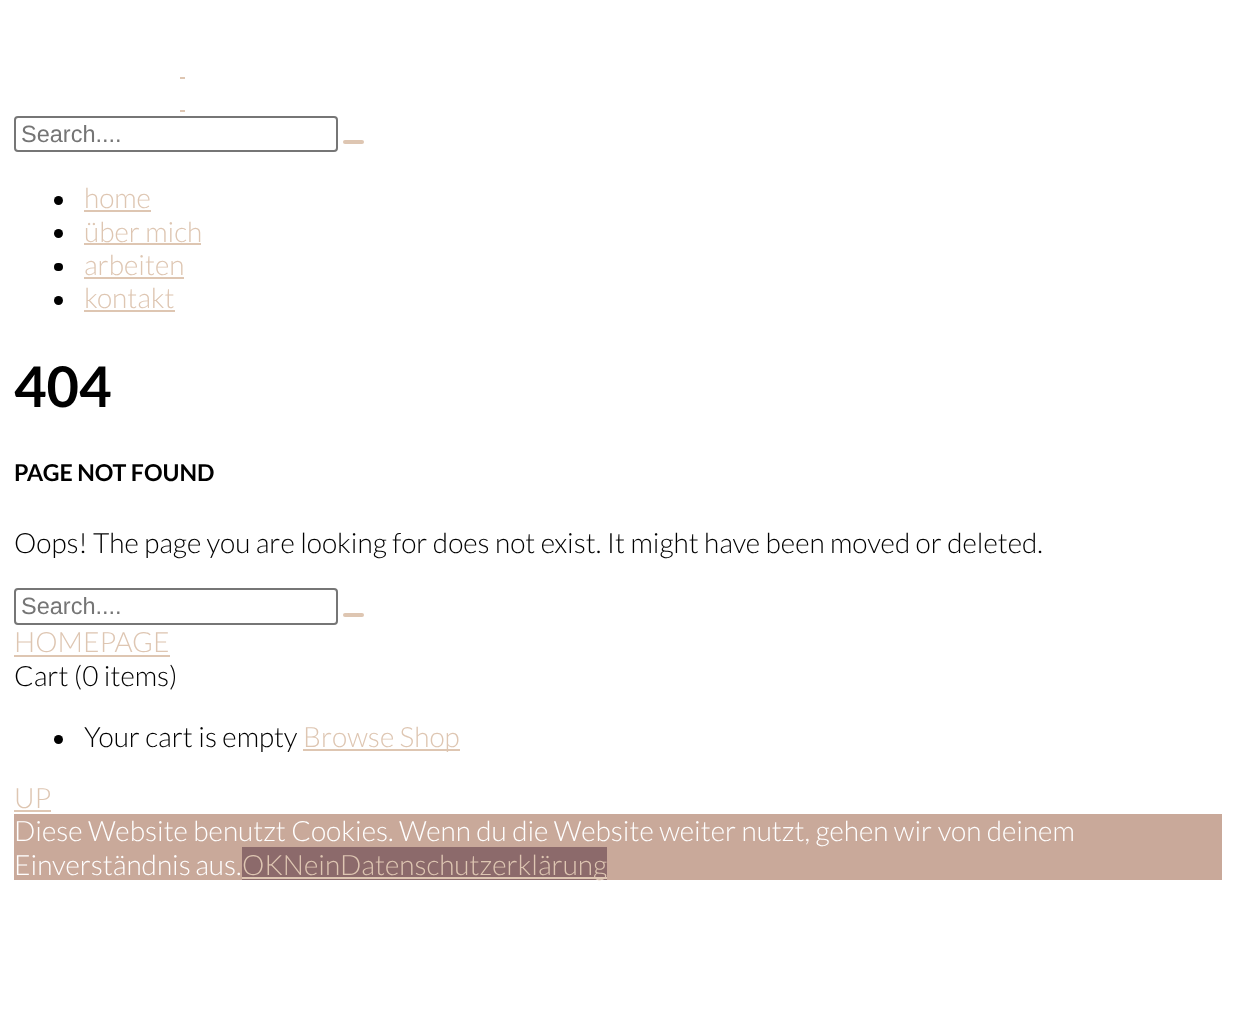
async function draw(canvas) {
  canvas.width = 1235
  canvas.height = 1036
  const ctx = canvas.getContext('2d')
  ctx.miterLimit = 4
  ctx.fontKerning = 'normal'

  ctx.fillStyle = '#fff'
  ctx.fillRect(0, 0, 1235, 1036)
  ctx.fillStyle = '#dec6b2'
  ctx.fillRect(180, 77, 5, 2)
  ctx.fillRect(180, 110, 5, 2)
  ctx.beginPath()
  ctx.roundRect(15, 117, 322, 34, 3)
  ctx.strokeStyle = '#767676'
  ctx.lineWidth = 2
  ctx.stroke()
  ctx.font = '23.5px Liberation Sans'
  ctx.fillStyle = '#757575'
  ctx.fillText('Search....', 21, 142)
  ctx.fillStyle = '#dec6b2'
  ctx.beginPath()
  ctx.roundRect(343, 140, 21, 4, 2)
  ctx.fill()
  ctx.fillStyle = '#000'
  ctx.beginPath()
  ctx.arc(58.5, 200.5, 4.5, 0, 2 * Math.PI)
  ctx.fill()
  ctx.font = '300 28px Lato'
  ctx.fillStyle = '#dec6b2'
  ctx.fillText('home', 84, 208)
  ctx.fillRect(84, 210, 67, 2)
  ctx.fillStyle = '#000'
  ctx.beginPath()
  ctx.arc(58.5, 233.5, 4.5, 0, 2 * Math.PI)
  ctx.fill()
  ctx.fillStyle = '#dec6b2'
  ctx.fillText('über mich', 84, 242)
  ctx.fillRect(84, 243, 117, 2)
  ctx.fillStyle = '#000'
  ctx.beginPath()
  ctx.roundRect(54, 263, 9, 8, 4)
  ctx.fill()
  ctx.fillStyle = '#dec6b2'
  ctx.fillText('arbeiten', 84, 275)
  ctx.fillRect(84, 277, 100, 2)
  ctx.fillStyle = '#000'
  ctx.beginPath()
  ctx.arc(58.5, 300.5, 4.5, 0, 2 * Math.PI)
  ctx.fill()
  ctx.fillStyle = '#dec6b2'
  ctx.fillText('kontakt', 84, 308)
  ctx.fillRect(84, 310, 91, 2)
  ctx.font = 'bold 56px Lato'
  ctx.fillStyle = '#000'
  ctx.fillText('404', 14, 407)
  ctx.font = 'bold 23.25px Lato'
  ctx.fillText('PAGE NOT FOUND', 14, 481)
  ctx.font = '300 28px Lato'
  ctx.fillText('Oops! The page you are looking for does not exist. It might have been moved or deleted.', 14, 553)
  ctx.beginPath()
  ctx.roundRect(15, 589, 322, 35, 3)
  ctx.stroke()
  ctx.font = '23.5px Liberation Sans'
  ctx.fillStyle = '#757575'
  ctx.fillText('Search....', 21, 614)
  ctx.fillStyle = '#dec6b2'
  ctx.beginPath()
  ctx.roundRect(343, 613, 21, 4, 2)
  ctx.fill()
  ctx.font = '300 28px Lato'
  ctx.fillText('HOMEPAGE', 14, 652)
  ctx.fillRect(14, 655, 156, 2)
  ctx.fillStyle = '#000'
  ctx.fillText('Cart (0 items)', 14, 686)
  ctx.beginPath()
  ctx.arc(58.5, 739.5, 4.5, 0, 2 * Math.PI)
  ctx.fill()
  ctx.fillText('Your cart is empty', 84, 747)
  ctx.fillStyle = '#dec6b2'
  ctx.fillRect(303, 749, 157, 2)
  ctx.fillText('Browse Shop', 303, 747)
  ctx.fillText('UP', 14, 808)
  ctx.fillRect(14, 810, 37, 2)
  ctx.fillStyle = '#c9a99a'
  ctx.fillRect(14, 814, 1208, 66)
  ctx.fillStyle = '#fff'
  ctx.fillText('Diese Website benutzt Cookies. Wenn du die Website weiter nutzt, gehen wir von deinem', 14, 841)
  ctx.wordSpacing = '-1px'
  ctx.fillText('Einverständnis aus.', 14, 875)
  ctx.fillStyle = '#8c6a6b'
  ctx.fillRect(242, 847, 365, 33)
  ctx.fillStyle = '#dec6b2'
  ctx.fillRect(242, 877, 365, 2)
  ctx.wordSpacing = '0px'
  ctx.fillText('OKNeinDatenschutzerklärung', 242, 875)
}

draw(document.querySelector('canvas'))
